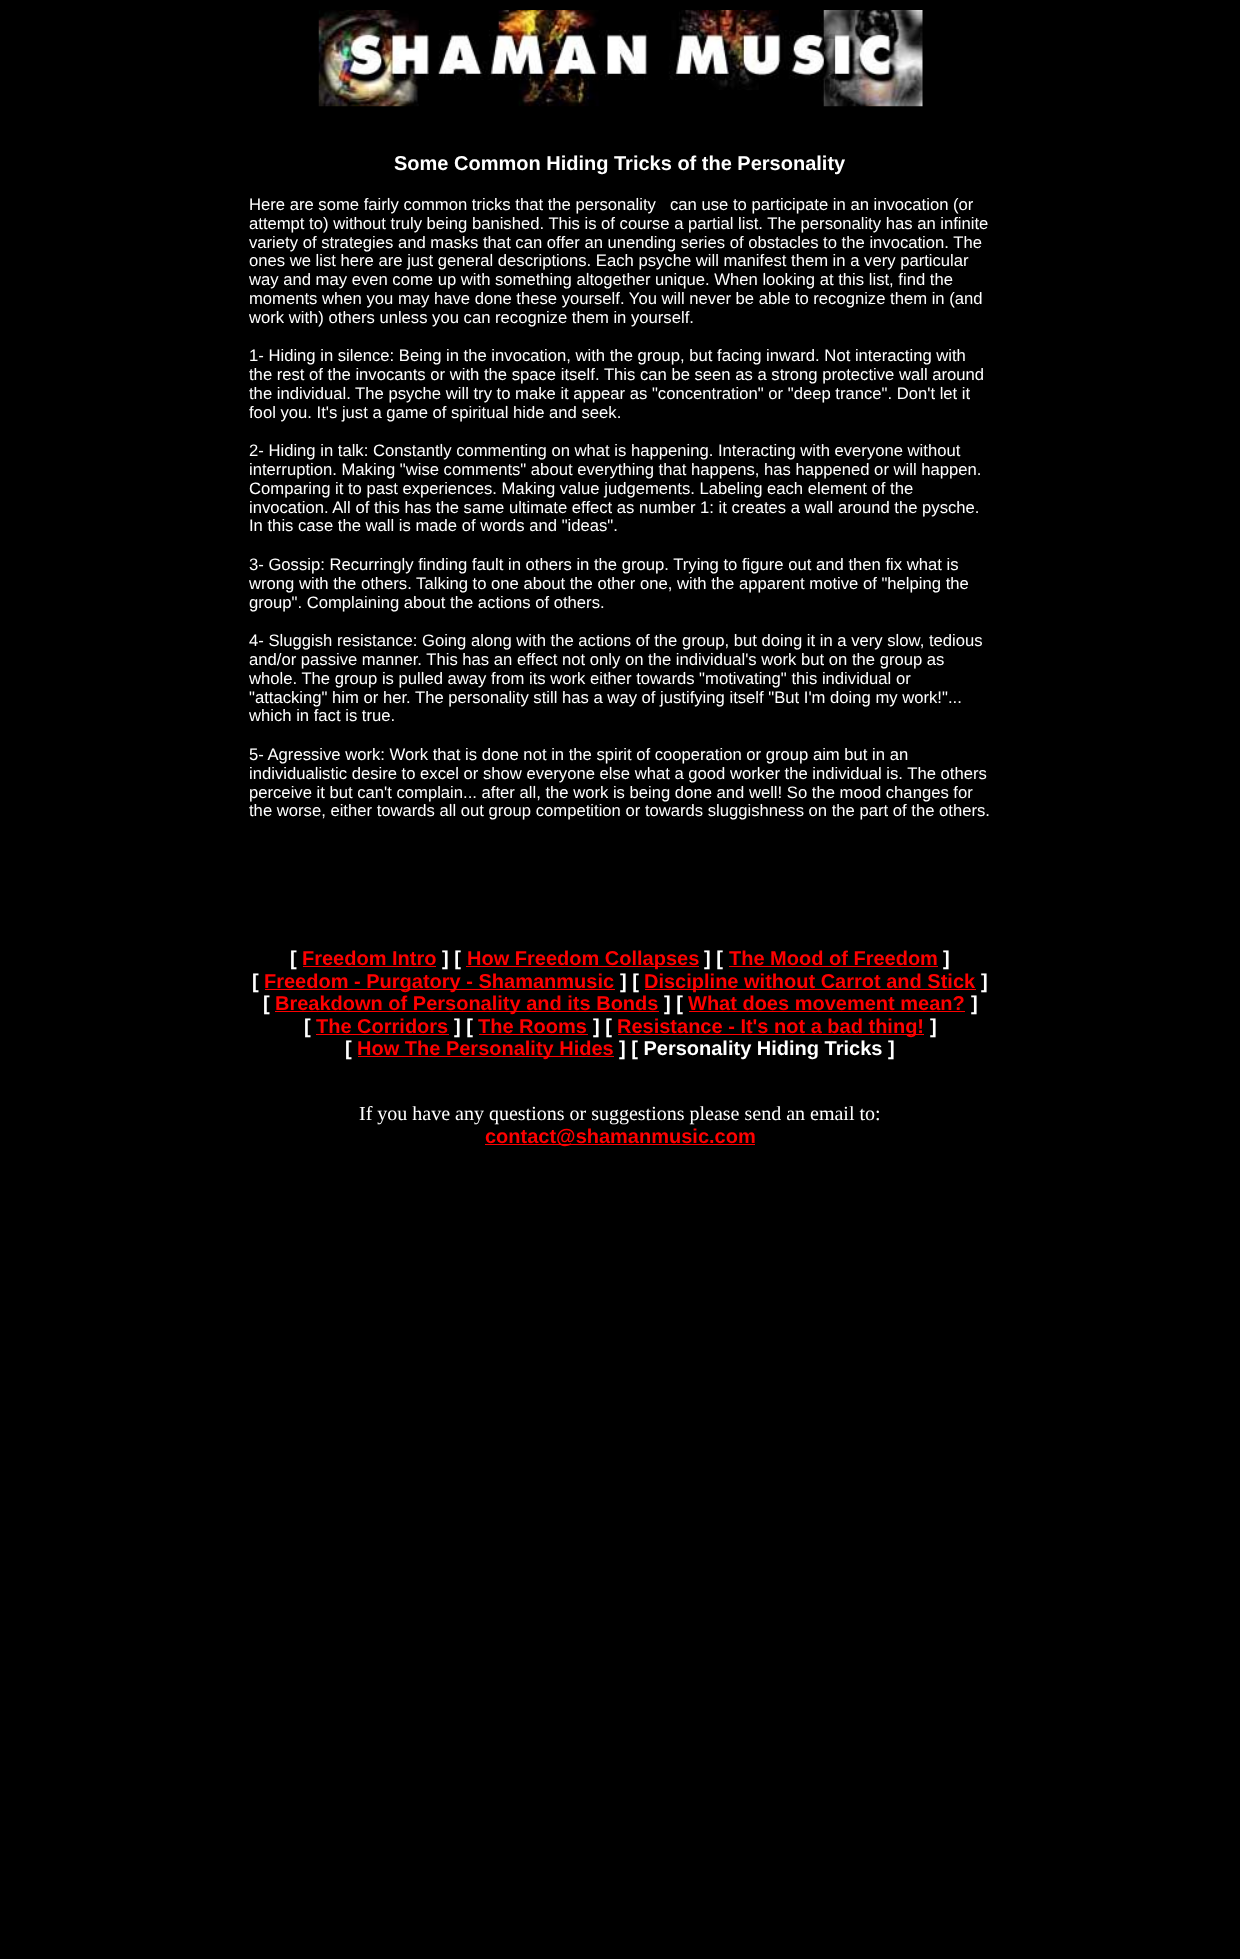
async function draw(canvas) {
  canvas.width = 1240
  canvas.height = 1959
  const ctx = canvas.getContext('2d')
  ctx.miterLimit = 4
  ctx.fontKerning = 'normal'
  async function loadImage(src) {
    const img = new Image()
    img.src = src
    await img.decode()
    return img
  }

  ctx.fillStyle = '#000'
  ctx.fillRect(0, 0, 1240, 1959)
  ctx.drawImage(await loadImage('image0.png'), 318, 10, 605, 97)
  ctx.font = 'bold 20px Liberation Sans'
  ctx.fillStyle = '#fff'
  ctx.fillText('Some Common Hiding Tricks of the Personality', 394, 170)
  ctx.font = '16.65px Liberation Sans'
  ctx.fillText('Here are some fairly common tricks that the personality', 249, 210)
  ctx.fillText('can use to participate in an invocation (or', 670, 210)
  ctx.fillText('attempt to) without truly being banished. This is of course a partial list. The personality has an infinite', 249, 229)
  ctx.fillText('variety of strategies and masks that can offer an unending series of obstacles to the invocation. The', 249, 248)
  ctx.fillText('ones we list here are just general descriptions. Each psyche will manifest them in a very particular', 249, 266)
  ctx.fillText('way and may even come up with something altogether unique. When looking at this list, find the', 249, 285)
  ctx.fillText('moments when you may have done these yourself. You will never be able to recognize them in (and', 249, 304)
  ctx.fillText('work with) others unless you can recognize them in yourself.', 249, 323)
  ctx.fillText('1- Hiding in silence: Being in the invocation, with the group, but facing inward. Not interacting with', 249, 361)
  ctx.fillText('the rest of the invocants or with the space itself. This can be seen as a strong protective wall around', 249, 380)
  ctx.fillText('the individual. The psyche will try to make it appear as "concentration" or "deep trance". Don\'t let it', 249, 399)
  ctx.fillText('fool you. It\'s just a game of spiritual hide and seek.', 249, 418)
  ctx.fillText('2- Hiding in talk: Constantly commenting on what is happening. Interacting with everyone without', 249, 456)
  ctx.fillText('interruption. Making "wise comments" about everything that happens, has happened or will happen.', 249, 475)
  ctx.fillText('Comparing it to past experiences. Making value judgements. Labeling each element of the', 249, 494)
  ctx.fillText('invocation. All of this has the same ultimate effect as number 1: it creates a wall around the pysche.', 249, 513)
  ctx.fillText('In this case the wall is made of words and "ideas".', 249, 531)
  ctx.fillText('3- Gossip: Recurringly finding fault in others in the group. Trying to figure out and then fix what is', 249, 570)
  ctx.fillText('wrong with the others. Talking to one about the other one, with the apparent motive of "helping the', 249, 589)
  ctx.fillText('group". Complaining about the actions of others.', 249, 608)
  ctx.fillText('4- Sluggish resistance: Going along with the actions of the group, but doing it in a very slow, tedious', 249, 646)
  ctx.fillText('and/or passive manner. This has an effect not only on the individual\'s work but on the group as', 249, 665)
  ctx.fillText('whole. The group is pulled away from its work either towards "motivating" this individual or', 249, 684)
  ctx.fillText('"attacking" him or her. The personality still has a way of justifying itself "But I\'m doing my work!"...', 249, 703)
  ctx.fillText('which in fact is true.', 249, 721)
  ctx.fillText('5- Agressive work: Work that is done not in the spirit of cooperation or group aim but in an', 249, 760)
  ctx.fillText('individualistic desire to excel or show everyone else what a good worker the individual is. The others', 249, 779)
  ctx.fillText('perceive it but can\'t complain... after all, the work is being done and well! So the mood changes for', 249, 798)
  ctx.fillText('the worse, either towards all out group competition or towards sluggishness on the part of the others.', 249, 816)
  ctx.font = 'bold 20px Liberation Sans'
  ctx.fillText('[', 290, 965)
  ctx.fillStyle = '#f00'
  ctx.fillText('Freedom Intro', 302, 965)
  ctx.fillRect(303, 966, 133, 1)
  ctx.fillStyle = '#fff'
  ctx.fillText('] [', 442, 965)
  ctx.fillStyle = '#f00'
  ctx.fillRect(466, 966, 233, 1)
  ctx.fillText('How Freedom Collapses', 467, 965)
  ctx.fillStyle = '#fff'
  ctx.fillText('] [', 704, 965)
  ctx.fillStyle = '#f00'
  ctx.fillText('The Mood of Freedom', 729, 965)
  ctx.fillRect(729, 966, 209, 1)
  ctx.fillStyle = '#fff'
  ctx.fillText(']', 943, 965)
  ctx.fillText('[', 252, 988)
  ctx.fillStyle = '#f00'
  ctx.fillRect(265, 989, 350, 1)
  ctx.fillText('Freedom - Purgatory - Shamanmusic', 264, 988)
  ctx.fillStyle = '#fff'
  ctx.fillText('] [', 620, 988)
  ctx.fillStyle = '#f00'
  ctx.fillRect(645, 989, 331, 1)
  ctx.fillText('Discipline without Carrot and Stick', 644, 988)
  ctx.fillStyle = '#fff'
  ctx.fillText(']', 981, 988)
  ctx.fillText('[', 263, 1010)
  ctx.fillStyle = '#f00'
  ctx.fillRect(275, 1011, 384, 1)
  ctx.fillText('Breakdown of Personality and its Bonds', 275, 1010)
  ctx.fillStyle = '#fff'
  ctx.fillText('] [', 664, 1010)
  ctx.fillStyle = '#f00'
  ctx.fillText('What does movement mean?', 688, 1010)
  ctx.fillRect(689, 1011, 276, 1)
  ctx.fillStyle = '#fff'
  ctx.fillText(']', 971, 1010)
  ctx.fillText('[', 304, 1033)
  ctx.fillStyle = '#f00'
  ctx.fillText('The Corridors', 316, 1033)
  ctx.fillRect(316, 1034, 133, 1)
  ctx.fillStyle = '#fff'
  ctx.fillText('] [', 454, 1033)
  ctx.fillStyle = '#f00'
  ctx.fillText('The Rooms', 478, 1033)
  ctx.fillRect(479, 1034, 109, 1)
  ctx.fillStyle = '#fff'
  ctx.fillText('] [', 593, 1033)
  ctx.fillStyle = '#f00'
  ctx.fillRect(618, 1034, 306, 1)
  ctx.fillText('Resistance - It\'s not a bad thing!', 617, 1033)
  ctx.fillStyle = '#fff'
  ctx.fillText(']', 930, 1033)
  ctx.fillText('[', 345, 1055)
  ctx.fillStyle = '#f00'
  ctx.fillRect(358, 1056, 256, 1)
  ctx.fillText('How The Personality Hides', 357, 1055)
  ctx.fillStyle = '#fff'
  ctx.fillText('] [ Personality Hiding Tricks ]', 619, 1055)
  ctx.font = '20px Liberation Serif'
  ctx.fillText('If you have any questions or suggestions please send an email to:', 359, 1120)
  ctx.fillStyle = '#f00'
  ctx.fillRect(485, 1144, 270, 1)
  ctx.font = 'bold 20px Liberation Sans'
  ctx.fillText('contact@shamanmusic.com', 485, 1143)
}

draw(document.querySelector('canvas'))
